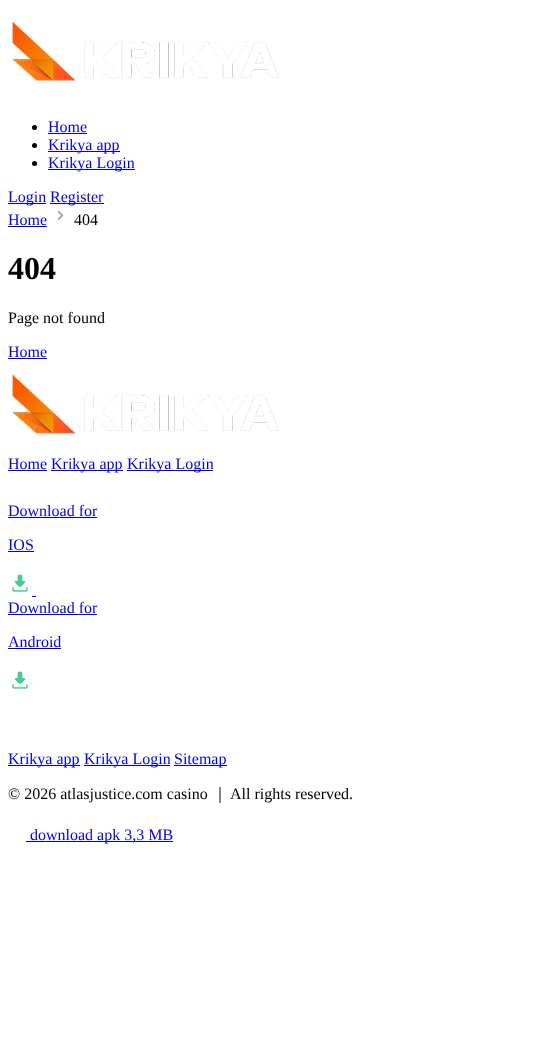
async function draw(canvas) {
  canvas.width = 554
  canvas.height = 1056
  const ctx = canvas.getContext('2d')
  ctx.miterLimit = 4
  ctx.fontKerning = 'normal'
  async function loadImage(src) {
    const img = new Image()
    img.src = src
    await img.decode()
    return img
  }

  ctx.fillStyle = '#fff'
  ctx.fillRect(0, 0, 554, 1056)
  ctx.drawImage(await loadImage('image0.png'), 12, 21, 267, 60)
  ctx.fillStyle = '#000'
  ctx.beginPath()
  ctx.arc(34.5, 127.5, 2.5, 0, 2 * Math.PI)
  ctx.fill()
  ctx.font = '16px Liberation Serif'
  ctx.fillStyle = '#00e'
  ctx.fillText('Home', 48, 132)
  ctx.fillRect(48, 133, 39, 1)
  ctx.fillStyle = '#000'
  ctx.beginPath()
  ctx.arc(34.5, 145.5, 2.5, 0, 2 * Math.PI)
  ctx.fill()
  ctx.fillStyle = '#00e'
  ctx.fillRect(48, 151, 72, 1)
  ctx.fillText('Krikya app', 48, 150)
  ctx.fillStyle = '#000'
  ctx.beginPath()
  ctx.arc(34.5, 163.5, 2.5, 0, 2 * Math.PI)
  ctx.fill()
  ctx.fillStyle = '#00e'
  ctx.fillRect(48, 169, 87, 1)
  ctx.fillText('Krikya Login', 48, 168)
  ctx.fillRect(8, 203, 38, 1)
  ctx.fillText('Login', 8, 202)
  ctx.fillRect(50, 203, 54, 1)
  ctx.fillText('Register', 50, 202)
  ctx.fillText('Home', 8, 225)
  ctx.fillRect(8, 226, 39, 1)
  ctx.drawImage(await loadImage('image1.png'), 57, 211, 7, 9)
  ctx.fillStyle = '#000'
  ctx.fillText('404', 74, 225)
  ctx.font = 'bold 32px Liberation Serif'
  ctx.fillText('404', 8, 279)
  ctx.font = '16px Liberation Serif'
  ctx.fillText('Page not found', 8, 323)
  ctx.fillStyle = '#00e'
  ctx.fillText('Home', 8, 357)
  ctx.fillRect(8, 358, 39, 1)
  ctx.drawImage(await loadImage('image0.png'), 12, 374, 267, 60)
  ctx.fillText('Home', 8, 469)
  ctx.fillRect(8, 470, 39, 1)
  ctx.fillRect(51, 470, 72, 1)
  ctx.fillText('Krikya app', 51, 469)
  ctx.fillRect(127, 470, 86, 1)
  ctx.fillText('Krikya Login', 127, 469)
  ctx.fillText('Download for', 8, 516)
  ctx.fillRect(8, 517, 89, 1)
  ctx.fillText('IOS', 8, 550)
  ctx.fillRect(8, 551, 26, 1)
  ctx.drawImage(await loadImage('image2.png'), 12, 574, 16, 18)
  ctx.fillRect(32, 596, 4, 1)
  ctx.fillText('Download for', 8, 613)
  ctx.fillRect(8, 614, 89, 1)
  ctx.fillText('Android', 8, 647)
  ctx.fillRect(8, 648, 53, 1)
  ctx.drawImage(await loadImage('image2.png'), 12, 671, 16, 18)
  ctx.fillRect(8, 765, 72, 1)
  ctx.fillText('Krikya app', 8, 764)
  ctx.fillRect(84, 765, 86, 1)
  ctx.fillText('Krikya Login', 84, 764)
  ctx.fillRect(174, 765, 53, 1)
  ctx.fillText('Sitemap', 174, 764)
  ctx.fillStyle = '#000'
  ctx.fillText('© 2026 atlasjustice.com casino', 8, 799)
  ctx.font = '500 16px WenQuanYi Zen Hei'
  ctx.fillText('｜', 212, 799)
  ctx.font = '16px Liberation Serif'
  ctx.fillText('All rights reserved.', 230, 799)
  ctx.fillStyle = '#00e'
  ctx.fillRect(26, 841, 147, 1)
  ctx.fillText('download apk 3,3 MB', 30, 840)
}

draw(document.querySelector('canvas'))
